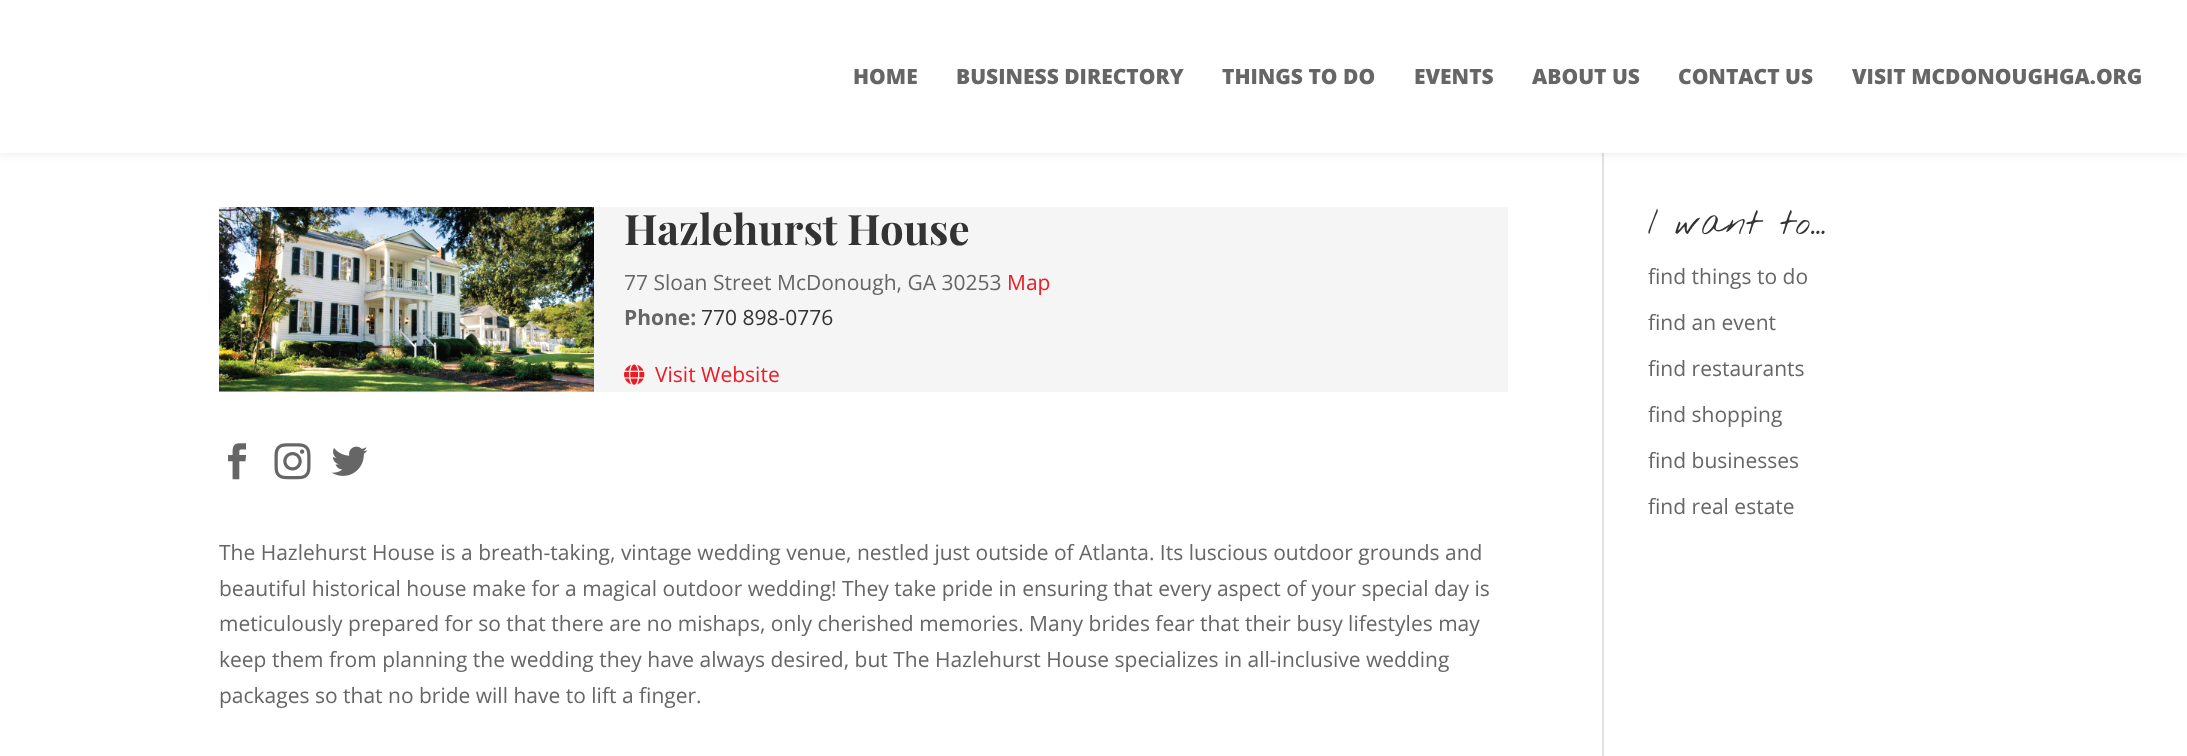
async function draw(canvas) {
  canvas.width = 2187
  canvas.height = 756
  const ctx = canvas.getContext('2d')
  ctx.miterLimit = 4
  ctx.fontKerning = 'normal'
  async function loadImage(src) {
    const img = new Image()
    img.src = src
    await img.decode()
    return img
  }

  ctx.fillStyle = '#fff'
  ctx.fillRect(0, 0, 2187, 756)
  ctx.fillStyle = '#e2e2e2'
  ctx.fillRect(1602, 153, 2, 603)
  ctx.fillStyle = '#0000001a'
  ctx.filter = 'blur(5px)'
  ctx.beginPath()
  ctx.rect(0, 0, 2187, 153)
  ctx.fill()
  ctx.filter = 'none'
  ctx.fillStyle = '#fff'
  ctx.fillRect(0, 0, 2187, 153)
  ctx.font = '800 21px Open Sans'
  ctx.fillStyle = '#666'
  ctx.fillText('HOME', 853, 84)
  ctx.fillText('BUSINESS DIRECTORY', 956, 84)
  ctx.fillText('THINGS TO DO', 1222, 84)
  ctx.fillText('EVENTS', 1414, 84)
  ctx.fillText('ABOUT US', 1532, 84)
  ctx.fillText('CONTACT US', 1678, 84)
  ctx.fillText('VISIT MCDONOUGHGA.ORG', 1852, 84)
  ctx.fillStyle = '#f5f5f5'
  ctx.fillRect(219, 207, 1289, 185)
  ctx.drawImage(await loadImage('image0.png'), 219, 207, 375, 185)
  ctx.font = 'bold 42px Playfair Display'
  ctx.fillStyle = '#333'
  ctx.fillText('Hazlehurst House', 624, 245)
  ctx.font = '21px Open Sans'
  ctx.fillStyle = '#666'
  ctx.fillText('77 Sloan Street McDonough, GA 30253', 624, 290)
  ctx.fillStyle = '#ed1c24'
  ctx.fillText('Map', 1007, 290)
  ctx.font = 'bold 21px Open Sans'
  ctx.fillStyle = '#666'
  ctx.fillText('Phone:', 624, 325)
  ctx.font = '21px Open Sans'
  ctx.fillStyle = '#333'
  ctx.fillText('770 898-0776', 701, 325)
  ctx.drawImage(await loadImage('image1.png'), 624, 364, 21, 21)
  ctx.fillStyle = '#ed1c24'
  ctx.fillText('Visit Website', 655, 382)
  ctx.drawImage(await loadImage('image2.png'), 228, 443, 19, 37)
  ctx.drawImage(await loadImage('image3.png'), 274, 443, 37, 37)
  ctx.drawImage(await loadImage('image4.png'), 331, 446, 37, 30)
  ctx.fillStyle = '#666'
  ctx.fillText('The Hazlehurst House is a breath-taking, vintage wedding venue, nestled just outside of Atlanta. Its luscious outdoor grounds and', 219, 560)
  ctx.fillText('beautiful historical house make for a magical outdoor wedding! They take pride in ensuring that every aspect of your special day is', 219, 596)
  ctx.fillText('meticulously prepared for so that there are no mishaps, only cherished memories. Many brides fear that their busy lifestyles may', 219, 631)
  ctx.fillText('keep them from planning the wedding they have always desired, but The Hazlehurst House specializes in all-inclusive wedding', 219, 667)
  ctx.fillText('packages so that no bride will have to lift a finger.', 219, 703)
  ctx.font = '36px Nothing You Could Do'
  ctx.fillStyle = '#333'
  ctx.fillText('I want to…', 1648, 234)
  ctx.font = '21px Open Sans'
  ctx.fillStyle = '#666'
  ctx.fillText('find things to do', 1648, 284)
  ctx.fillText('find an event', 1648, 330)
  ctx.fillText('find restaurants', 1648, 376)
  ctx.fillText('find shopping', 1648, 422)
  ctx.fillText('find businesses', 1648, 468)
  ctx.fillText('find real estate', 1648, 514)
}

draw(document.querySelector('canvas'))
